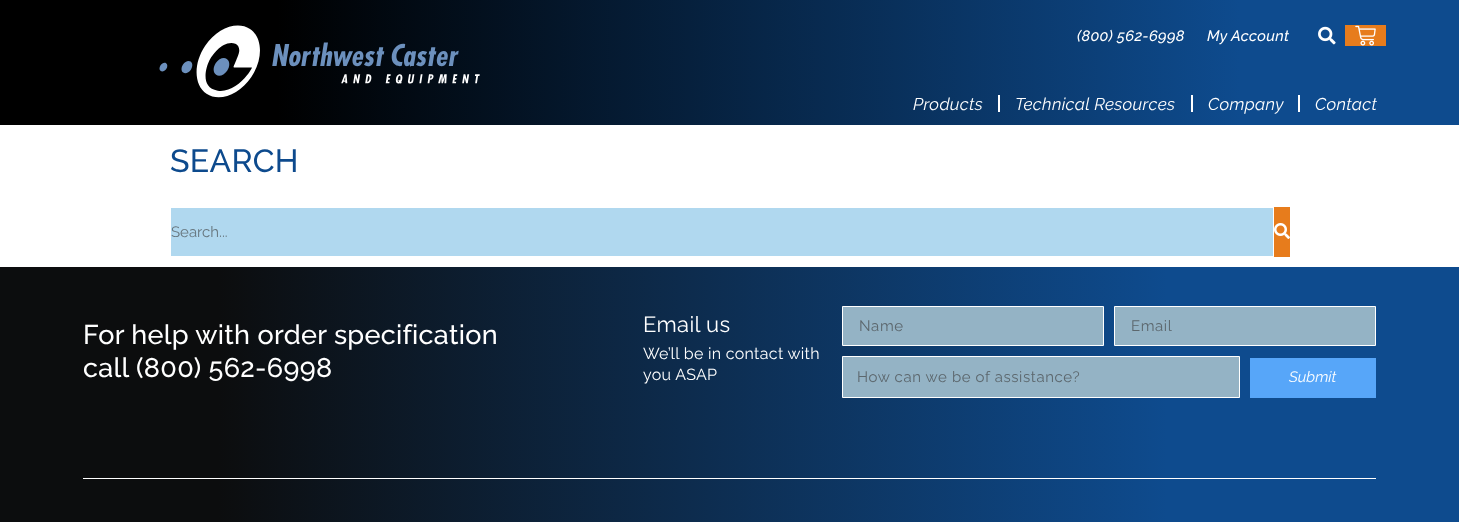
async function draw(canvas) {
  canvas.width = 1459
  canvas.height = 522
  const ctx = canvas.getContext('2d')
  ctx.miterLimit = 4
  ctx.fontKerning = 'normal'
  async function loadImage(src) {
    const img = new Image()
    img.src = src
    await img.decode()
    return img
  }
  let gradient

  ctx.fillStyle = '#fff'
  ctx.fillRect(0, 0, 1459, 522)
  gradient = ctx.createLinearGradient(0, 63, 1459, 62)
  gradient.addColorStop(0.19, '#000')
  gradient.addColorStop(0.85, '#0e4b8e')
  ctx.fillStyle = gradient
  ctx.fillRect(0, 0, 1459, 125)
  ctx.drawImage(await loadImage('image0.png'), 159, 25, 321, 73)
  ctx.letterSpacing = '0.3px'
  ctx.font = 'italic 500 15px Raleway'
  ctx.fillStyle = '#fff'
  ctx.fillText('(800) 562-6998', 1077, 41)
  ctx.fillText('My Account', 1207, 41)
  ctx.drawImage(await loadImage('image1.png'), 1318, 26, 18, 19)
  ctx.fillStyle = '#e77c1c'
  ctx.fillRect(1345, 25, 41, 21)
  ctx.drawImage(await loadImage('image2.png'), 1355, 25, 21, 21)
  ctx.fillStyle = '#fff'
  ctx.fillRect(998, 95, 2, 17)
  ctx.font = 'italic 17px Raleway'
  ctx.fillText('Products', 913, 110)
  ctx.fillRect(1191, 95, 2, 17)
  ctx.fillText('Technical Resources', 1015, 110)
  ctx.fillRect(1298, 95, 2, 17)
  ctx.fillText('Company', 1208, 110)
  ctx.fillText('Contact', 1315, 110)
  ctx.font = '500 32px Raleway'
  ctx.fillStyle = '#0d4a8d'
  ctx.fillText('SEARCH', 170, 172)
  ctx.fillStyle = '#b0d8ef'
  ctx.fillRect(171, 208, 1102, 48)
  ctx.letterSpacing = '0px'
  ctx.font = '15px Raleway'
  ctx.fillStyle = '#67767e'
  ctx.fillText('Search...', 171, 237)
  ctx.fillStyle = '#e77c1c'
  ctx.fillRect(1274, 207, 16, 50)
  ctx.drawImage(await loadImage('image3.png'), 1274, 223, 16, 16)
  gradient = ctx.createLinearGradient(0, 352, 1459, 352)
  gradient.addColorStop(0.15, '#0c0d0e')
  gradient.addColorStop(0.8, '#0e4b8e')
  ctx.fillStyle = gradient
  ctx.fillRect(0, 267, 1459, 170)
  ctx.letterSpacing = '0.3px'
  ctx.font = '500 27px Raleway'
  ctx.fillStyle = '#fff'
  ctx.fillText('For help with order specification', 83, 344)
  ctx.fillText('call (800) 562-6998', 83, 377)
  ctx.font = '22px Raleway'
  ctx.fillText('Email us', 643, 332)
  ctx.font = '16px Raleway'
  ctx.fillText('We’ll be in contact with', 643, 359)
  ctx.fillText('you ASAP', 643, 380)
  ctx.fillStyle = '#94b3c5'
  ctx.beginPath()
  ctx.rect(842.5, 306.5, 261, 39)
  ctx.fill()
  ctx.strokeStyle = '#fff'
  ctx.stroke()
  ctx.letterSpacing = '0.6px'
  ctx.font = '15px Raleway'
  ctx.fillStyle = '#5c676d'
  ctx.fillText('Name', 859, 331)
  ctx.fillStyle = '#94b3c5'
  ctx.beginPath()
  ctx.rect(1114.5, 306.5, 261, 39)
  ctx.fill()
  ctx.stroke()
  ctx.fillStyle = '#5c676d'
  ctx.fillText('Email', 1131, 331)
  ctx.fillStyle = '#94b3c5'
  ctx.beginPath()
  ctx.rect(842.5, 356.5, 397, 41)
  ctx.fill()
  ctx.stroke()
  ctx.fillStyle = '#5c676d'
  ctx.fillText('How can we be of assistance?', 857, 382)
  ctx.fillStyle = '#57a6f9'
  ctx.fillRect(1250, 358, 126, 40)
  ctx.letterSpacing = '0px'
  ctx.font = 'italic 15px Raleway'
  ctx.fillStyle = '#fff'
  ctx.fillText('Submit', 1289, 382)
  gradient = ctx.createLinearGradient(0, 479, 1459, 478)
  gradient.addColorStop(0.15, '#0c0d0e')
  gradient.addColorStop(0.8, '#0e4b8e')
  ctx.fillStyle = gradient
  ctx.fillRect(0, 437, 1459, 83)
  ctx.fillStyle = '#fff'
  ctx.fillRect(83, 478, 1293, 1)
  gradient = ctx.createLinearGradient(0, 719, 1459, 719)
  gradient.addColorStop(0.15, '#0c0d0e')
  gradient.addColorStop(0.8, '#0e4b8e')
  ctx.fillStyle = gradient
  ctx.fillRect(0, 520, 1459, 2)
}

draw(document.querySelector('canvas'))
